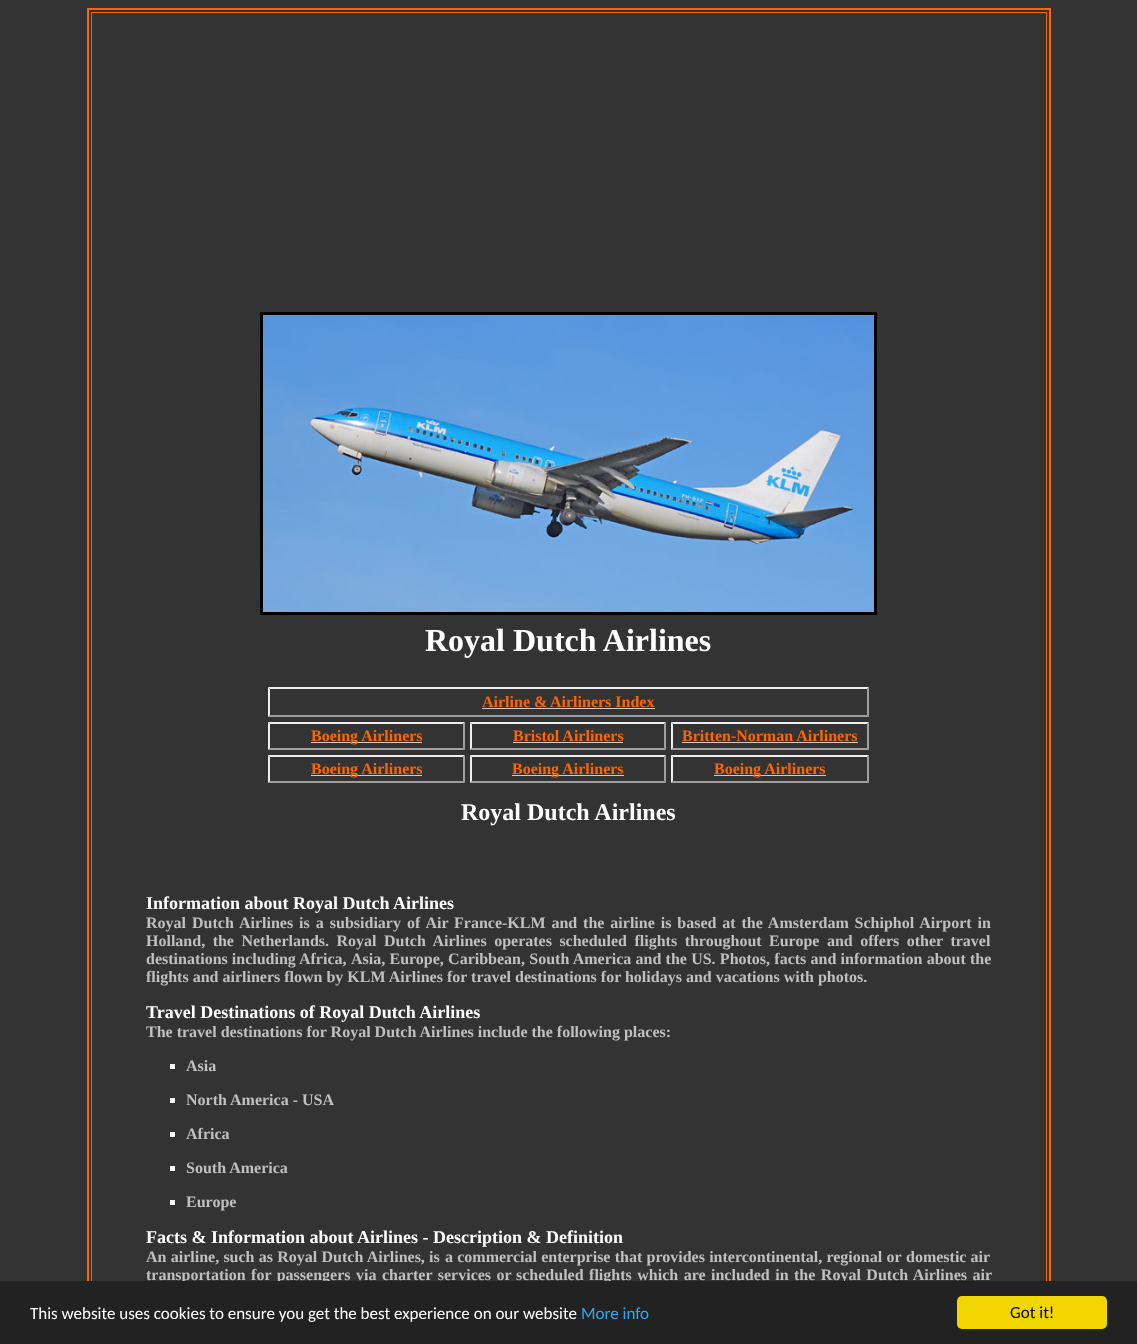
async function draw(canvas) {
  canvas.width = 1137
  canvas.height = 1344
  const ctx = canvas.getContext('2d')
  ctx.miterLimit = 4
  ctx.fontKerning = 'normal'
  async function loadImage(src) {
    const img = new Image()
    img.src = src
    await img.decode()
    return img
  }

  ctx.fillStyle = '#333'
  ctx.fillRect(0, 0, 1137, 1344)
  ctx.strokeStyle = '#f60'
  ctx.lineWidth = 2
  ctx.strokeRect(88, 9, 962, 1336)
  ctx.lineWidth = 1
  ctx.strokeRect(91.5, 12.5, 955, 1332)
  ctx.strokeStyle = '#000'
  ctx.lineWidth = 3
  ctx.strokeRect(261.5, 313.5, 614, 300)
  ctx.drawImage(await loadImage('image0.png'), 263, 315, 611, 297)
  ctx.font = 'bold 32px Liberation Serif'
  ctx.fillStyle = '#fff'
  ctx.fillText('Royal Dutch Airlines', 425, 651)
  ctx.fillStyle = '#eee'
  ctx.beginPath()
  ctx.moveTo(268, 687)
  ctx.lineTo(869, 687)
  ctx.lineTo(867, 689)
  ctx.lineTo(270, 689)
  ctx.closePath()
  ctx.fill()
  ctx.fillStyle = '#9f9f9f'
  ctx.beginPath()
  ctx.moveTo(869, 687)
  ctx.lineTo(869, 717)
  ctx.lineTo(867, 715)
  ctx.lineTo(867, 689)
  ctx.closePath()
  ctx.fill()
  ctx.beginPath()
  ctx.moveTo(869, 717)
  ctx.lineTo(268, 717)
  ctx.lineTo(270, 715)
  ctx.lineTo(867, 715)
  ctx.closePath()
  ctx.fill()
  ctx.fillStyle = '#eee'
  ctx.beginPath()
  ctx.moveTo(268, 717)
  ctx.lineTo(268, 687)
  ctx.lineTo(270, 689)
  ctx.lineTo(270, 715)
  ctx.closePath()
  ctx.fill()
  ctx.font = 'bold 16px Liberation Serif'
  ctx.fillStyle = '#f60'
  ctx.fillText('Airline &', 482, 707)
  ctx.fillStyle = '#ccc'
  ctx.fillRect(482, 708, 173, 1)
  ctx.fillStyle = '#f60'
  ctx.fillText('Airliners Index', 550, 707)
  ctx.fillStyle = '#eee'
  ctx.beginPath()
  ctx.moveTo(268, 722)
  ctx.lineTo(465, 722)
  ctx.lineTo(463, 724)
  ctx.lineTo(270, 724)
  ctx.closePath()
  ctx.fill()
  ctx.fillStyle = '#9f9f9f'
  ctx.beginPath()
  ctx.moveTo(465, 722)
  ctx.lineTo(465, 750)
  ctx.lineTo(463, 748)
  ctx.lineTo(463, 724)
  ctx.closePath()
  ctx.fill()
  ctx.beginPath()
  ctx.moveTo(465, 750)
  ctx.lineTo(268, 750)
  ctx.lineTo(270, 748)
  ctx.lineTo(463, 748)
  ctx.closePath()
  ctx.fill()
  ctx.fillStyle = '#eee'
  ctx.beginPath()
  ctx.moveTo(268, 750)
  ctx.lineTo(268, 722)
  ctx.lineTo(270, 724)
  ctx.lineTo(270, 748)
  ctx.closePath()
  ctx.fill()
  ctx.fillStyle = '#ccc'
  ctx.fillRect(311, 742, 111, 1)
  ctx.fillStyle = '#f60'
  ctx.fillText('Boeing Airliners', 311, 741)
  ctx.fillStyle = '#eee'
  ctx.beginPath()
  ctx.moveTo(470, 722)
  ctx.lineTo(666, 722)
  ctx.lineTo(664, 724)
  ctx.lineTo(472, 724)
  ctx.closePath()
  ctx.fill()
  ctx.fillStyle = '#9f9f9f'
  ctx.beginPath()
  ctx.moveTo(666, 722)
  ctx.lineTo(666, 750)
  ctx.lineTo(664, 748)
  ctx.lineTo(664, 724)
  ctx.closePath()
  ctx.fill()
  ctx.beginPath()
  ctx.moveTo(666, 750)
  ctx.lineTo(470, 750)
  ctx.lineTo(472, 748)
  ctx.lineTo(664, 748)
  ctx.closePath()
  ctx.fill()
  ctx.fillStyle = '#eee'
  ctx.beginPath()
  ctx.moveTo(470, 750)
  ctx.lineTo(470, 722)
  ctx.lineTo(472, 724)
  ctx.lineTo(472, 748)
  ctx.closePath()
  ctx.fill()
  ctx.fillStyle = '#f60'
  ctx.fillText('Bristol Airliners', 513, 741)
  ctx.fillStyle = '#ccc'
  ctx.fillRect(513, 742, 110, 1)
  ctx.fillStyle = '#eee'
  ctx.beginPath()
  ctx.moveTo(671, 722)
  ctx.lineTo(869, 722)
  ctx.lineTo(867, 724)
  ctx.lineTo(673, 724)
  ctx.closePath()
  ctx.fill()
  ctx.fillStyle = '#9f9f9f'
  ctx.beginPath()
  ctx.moveTo(869, 722)
  ctx.lineTo(869, 750)
  ctx.lineTo(867, 748)
  ctx.lineTo(867, 724)
  ctx.closePath()
  ctx.fill()
  ctx.beginPath()
  ctx.moveTo(869, 750)
  ctx.lineTo(671, 750)
  ctx.lineTo(673, 748)
  ctx.lineTo(867, 748)
  ctx.closePath()
  ctx.fill()
  ctx.fillStyle = '#eee'
  ctx.beginPath()
  ctx.moveTo(671, 750)
  ctx.lineTo(671, 722)
  ctx.lineTo(673, 724)
  ctx.lineTo(673, 748)
  ctx.closePath()
  ctx.fill()
  ctx.fillStyle = '#f60'
  ctx.fillText('Britten-Norman Airliners', 682, 741)
  ctx.fillStyle = '#ccc'
  ctx.fillRect(682, 742, 176, 1)
  ctx.fillStyle = '#eee'
  ctx.beginPath()
  ctx.moveTo(268, 755)
  ctx.lineTo(465, 755)
  ctx.lineTo(463, 757)
  ctx.lineTo(270, 757)
  ctx.closePath()
  ctx.fill()
  ctx.fillStyle = '#9f9f9f'
  ctx.beginPath()
  ctx.moveTo(465, 755)
  ctx.lineTo(465, 783)
  ctx.lineTo(463, 781)
  ctx.lineTo(463, 757)
  ctx.closePath()
  ctx.fill()
  ctx.beginPath()
  ctx.moveTo(465, 783)
  ctx.lineTo(268, 783)
  ctx.lineTo(270, 781)
  ctx.lineTo(463, 781)
  ctx.closePath()
  ctx.fill()
  ctx.fillStyle = '#eee'
  ctx.beginPath()
  ctx.moveTo(268, 783)
  ctx.lineTo(268, 755)
  ctx.lineTo(270, 757)
  ctx.lineTo(270, 781)
  ctx.closePath()
  ctx.fill()
  ctx.fillStyle = '#ccc'
  ctx.fillRect(311, 775, 111, 1)
  ctx.fillStyle = '#f60'
  ctx.fillText('Boeing Airliners', 311, 774)
  ctx.fillStyle = '#eee'
  ctx.beginPath()
  ctx.moveTo(470, 755)
  ctx.lineTo(666, 755)
  ctx.lineTo(664, 757)
  ctx.lineTo(472, 757)
  ctx.closePath()
  ctx.fill()
  ctx.fillStyle = '#9f9f9f'
  ctx.beginPath()
  ctx.moveTo(666, 755)
  ctx.lineTo(666, 783)
  ctx.lineTo(664, 781)
  ctx.lineTo(664, 757)
  ctx.closePath()
  ctx.fill()
  ctx.beginPath()
  ctx.moveTo(666, 783)
  ctx.lineTo(470, 783)
  ctx.lineTo(472, 781)
  ctx.lineTo(664, 781)
  ctx.closePath()
  ctx.fill()
  ctx.fillStyle = '#eee'
  ctx.beginPath()
  ctx.moveTo(470, 783)
  ctx.lineTo(470, 755)
  ctx.lineTo(472, 757)
  ctx.lineTo(472, 781)
  ctx.closePath()
  ctx.fill()
  ctx.fillStyle = '#ccc'
  ctx.fillRect(512, 775, 112, 1)
  ctx.fillStyle = '#f60'
  ctx.fillText('Boeing Airliners', 512, 774)
  ctx.fillStyle = '#eee'
  ctx.beginPath()
  ctx.moveTo(671, 755)
  ctx.lineTo(869, 755)
  ctx.lineTo(867, 757)
  ctx.lineTo(673, 757)
  ctx.closePath()
  ctx.fill()
  ctx.fillStyle = '#9f9f9f'
  ctx.beginPath()
  ctx.moveTo(869, 755)
  ctx.lineTo(869, 783)
  ctx.lineTo(867, 781)
  ctx.lineTo(867, 757)
  ctx.closePath()
  ctx.fill()
  ctx.beginPath()
  ctx.moveTo(869, 783)
  ctx.lineTo(671, 783)
  ctx.lineTo(673, 781)
  ctx.lineTo(867, 781)
  ctx.closePath()
  ctx.fill()
  ctx.fillStyle = '#eee'
  ctx.beginPath()
  ctx.moveTo(671, 783)
  ctx.lineTo(671, 755)
  ctx.lineTo(673, 757)
  ctx.lineTo(673, 781)
  ctx.closePath()
  ctx.fill()
  ctx.fillStyle = '#ccc'
  ctx.fillRect(714, 775, 112, 1)
  ctx.fillStyle = '#f60'
  ctx.fillText('Boeing Airliners', 714, 774)
  ctx.font = 'bold 24px Liberation Serif'
  ctx.fillStyle = '#fff'
  ctx.fillText('Royal Dutch Airlines', 461, 820)
  ctx.font = 'bold 18px Liberation Serif'
  ctx.fillText('Information about Royal Dutch Airlines', 146, 909)
  ctx.wordSpacing = '2px'
  ctx.font = 'bold 16px Liberation Serif'
  ctx.fillStyle = '#c0c0c0'
  ctx.fillText('Royal Dutch Airlines is a subsidiary of Air', 146, 928)
  ctx.wordSpacing = '1.9px'
  ctx.fillText('France-KLM and the airline is based at the Amsterdam Schiphol Airport in', 454, 928)
  ctx.wordSpacing = '3.5px'
  ctx.fillText('Holland, the Netherlands. Royal Dutch Airlines operates scheduled flights throughout', 146, 946)
  ctx.fillText('Europe and offers other travel', 769, 946)
  ctx.wordSpacing = '0px'
  ctx.fillText('destinations including Africa,', 146, 964)
  ctx.wordSpacing = '0.25px'
  ctx.fillText('Asia, Europe, Caribbean, South America and the US. Photos, facts and information about the', 351, 964)
  ctx.wordSpacing = '0px'
  ctx.fillText('flights and airliners flown by KLM Airlines for travel destinations for holidays and vacations with photos.', 146, 982)
  ctx.font = 'bold 18px Liberation Serif'
  ctx.fillStyle = '#fff'
  ctx.fillText('Travel Destinations of Royal Dutch Airlines', 146, 1018)
  ctx.font = 'bold 16px Liberation Serif'
  ctx.fillStyle = '#c0c0c0'
  ctx.fillText('The travel destinations for Royal Dutch Airlines include the following places:', 146, 1037)
  ctx.fillStyle = '#fff'
  ctx.fillRect(170, 1064, 5, 5)
  ctx.fillStyle = '#c0c0c0'
  ctx.fillText('Asia', 186, 1071)
  ctx.fillStyle = '#fff'
  ctx.fillRect(170, 1098, 5, 5)
  ctx.fillStyle = '#c0c0c0'
  ctx.fillText('North America - USA', 186, 1105)
  ctx.fillStyle = '#fff'
  ctx.fillRect(170, 1132, 5, 5)
  ctx.fillStyle = '#c0c0c0'
  ctx.fillText('Africa', 186, 1139)
  ctx.fillStyle = '#fff'
  ctx.fillRect(170, 1166, 5, 5)
  ctx.fillStyle = '#c0c0c0'
  ctx.fillText('South America', 186, 1173)
  ctx.fillStyle = '#fff'
  ctx.fillRect(170, 1200, 5, 5)
  ctx.fillStyle = '#c0c0c0'
  ctx.fillText('Europe', 186, 1207)
  ctx.font = 'bold 18px Liberation Serif'
  ctx.fillStyle = '#fff'
  ctx.fillText('Facts & Information about Airlines - Description & Definition', 146, 1243)
  ctx.wordSpacing = '0.25px'
  ctx.font = 'bold 16px Liberation Serif'
  ctx.fillStyle = '#c0c0c0'
  ctx.fillText('An airline, such as Royal Dutch Airlines, is', 146, 1262)
  ctx.fillText('a commercial enterprise that provides intercontinental, regional or', 445, 1262)
  ctx.wordSpacing = '0px'
  ctx.fillText('domestic air', 906, 1262)
  ctx.wordSpacing = '1.5px'
  ctx.fillText('transportation for passengers via charter services or', 146, 1280)
  ctx.fillText('scheduled flights which are', 516, 1280)
  ctx.fillText('included in the Royal Dutch Airlines air', 711, 1280)
  ctx.fillStyle = '#222'
  ctx.fillRect(0, 1281, 1137, 63)
  ctx.wordSpacing = '0px'
  ctx.font = '17px Carlito'
  ctx.fillStyle = '#fff'
  ctx.fillText('This website uses cookies to ensure you get the best experience on our website', 30, 1319)
  ctx.fillStyle = '#31a8f0'
  ctx.fillText('More info', 581, 1319)
  ctx.fillStyle = '#f1d600'
  ctx.beginPath()
  ctx.roundRect(957, 1296, 150, 33, 5)
  ctx.fill()
  ctx.fillStyle = '#000'
  ctx.fillText('Got it!', 1010, 1318)
}

draw(document.querySelector('canvas'))
